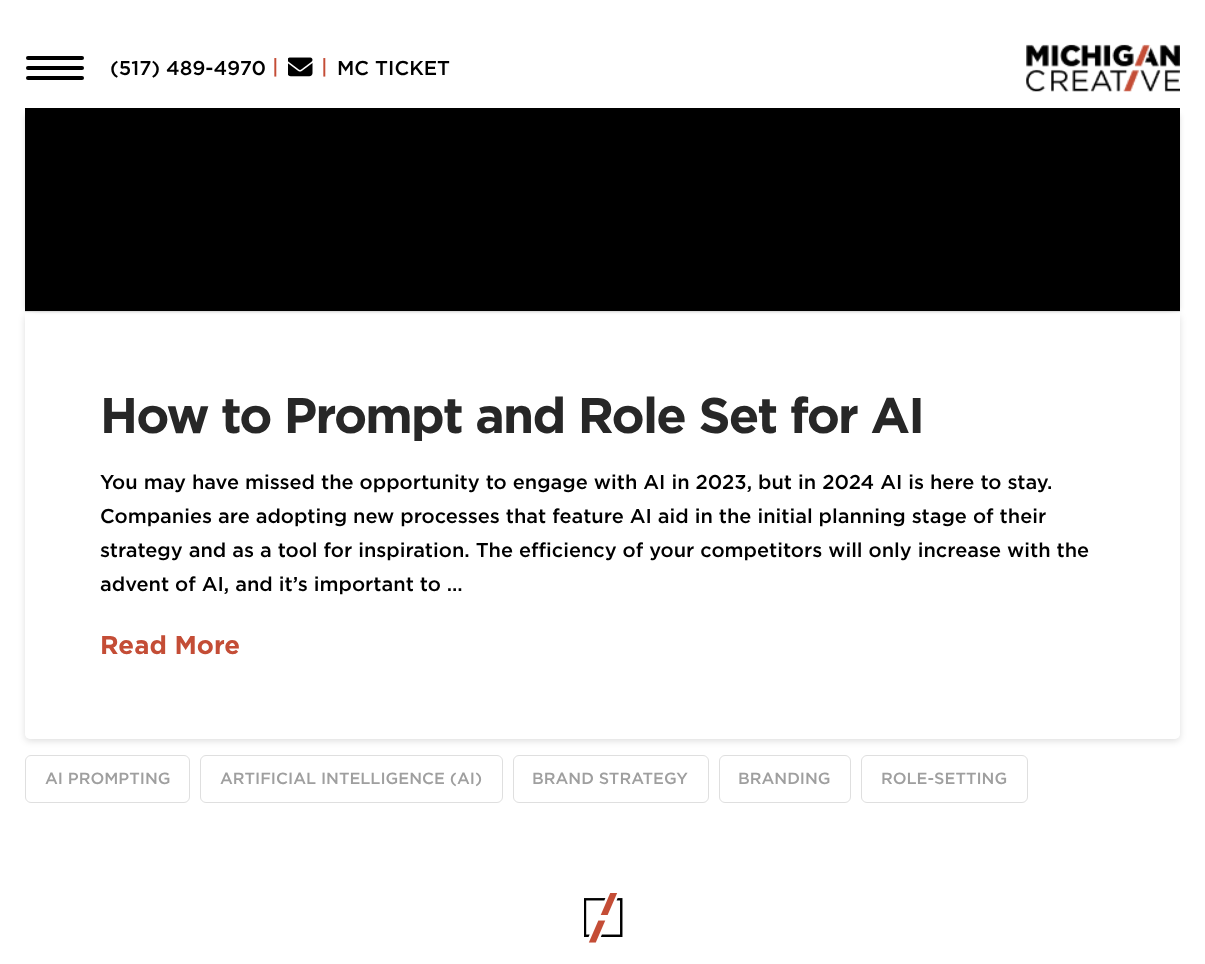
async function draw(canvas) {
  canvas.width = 1205
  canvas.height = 964
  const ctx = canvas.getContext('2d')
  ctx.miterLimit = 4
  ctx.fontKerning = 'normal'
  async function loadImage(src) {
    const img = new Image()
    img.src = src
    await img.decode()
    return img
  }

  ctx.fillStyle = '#fff'
  ctx.fillRect(0, 0, 1205, 964)
  ctx.fillStyle = '#000'
  ctx.beginPath()
  ctx.roundRect(26, 56, 58, 4, 2)
  ctx.fill()
  ctx.beginPath()
  ctx.roundRect(26, 66, 58, 4, 2)
  ctx.fill()
  ctx.beginPath()
  ctx.roundRect(26, 76, 58, 4, 2)
  ctx.fill()
  ctx.font = '500 20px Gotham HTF'
  ctx.fillText('(517) 489-4970', 110, 75)
  ctx.fillStyle = '#c44d36'
  ctx.fillText('|', 272, 74)
  ctx.drawImage(await loadImage('image0.png'), 288, 57, 25, 20)
  ctx.fillText('|', 321, 74)
  ctx.fillStyle = '#000'
  ctx.fillText('MC TICKET', 337, 75)
  ctx.drawImage(await loadImage('image1.png'), 1026, 44, 154, 48)
  ctx.fillStyle = '#00000021'
  ctx.filter = 'blur(3.5px)'
  ctx.beginPath()
  ctx.roundRect(25, 315, 1155, 426, 5)
  ctx.fill()
  ctx.filter = 'none'
  ctx.fillStyle = '#fff'
  ctx.beginPath()
  ctx.roundRect(25, 313, 1155, 426, [0, 0, 5, 5])
  ctx.fill()
  ctx.fillStyle = '#00000021'
  ctx.filter = 'blur(2.5px)'
  ctx.beginPath()
  ctx.rect(25, 115, 1145, 195)
  ctx.fill()
  ctx.filter = 'none'
  ctx.filter = 'blur(2.5px)'
  ctx.beginPath()
  ctx.rect(35, 115, 1145, 195)
  ctx.fill()
  ctx.filter = 'none'
  ctx.fillStyle = '#ddd'
  ctx.fillRect(25, 311, 1155, 1)
  ctx.fillStyle = '#000'
  ctx.fillRect(25, 108, 1155, 203)
  ctx.letterSpacing = '-1.75px'
  ctx.font = 'bold 50px Gotham HTF'
  ctx.fillStyle = '#272727'
  ctx.fillText('How to Prompt and Role Set for AI', 100, 433)
  ctx.letterSpacing = '0px'
  ctx.font = '500 20px Gotham HTF'
  ctx.fillStyle = '#000'
  ctx.fillText('You may have missed the opportunity to engage with AI in 2023, but in 2024 AI is here to stay.', 100, 489)
  ctx.fillText('Companies are adopting new processes that feature AI aid in the initial planning stage of their', 100, 523)
  ctx.fillText('strategy and as a tool for inspiration. The efficiency of your competitors will only increase with the', 100, 557)
  ctx.fillText('advent of AI, and it’s important to …', 100, 591)
  ctx.font = 'bold 25.75px Gotham HTF'
  ctx.fillStyle = '#c44d36'
  ctx.fillText('Read More', 100, 654)
  ctx.beginPath()
  ctx.roundRect(25.5, 755.5, 164, 47, 5.5)
  ctx.strokeStyle = '#dfdfdf'
  ctx.stroke()
  ctx.font = '500 16.25px Gotham HTF'
  ctx.fillStyle = '#9f9f9f'
  ctx.fillText('AI PROMPTING', 45, 784)
  ctx.beginPath()
  ctx.roundRect(200.5, 755.5, 302, 47, 5.5)
  ctx.stroke()
  ctx.fillText('ARTIFICIAL INTELLIGENCE (AI)', 220, 784)
  ctx.beginPath()
  ctx.roundRect(513.5, 755.5, 195, 47, 5.5)
  ctx.stroke()
  ctx.fillText('BRAND STRATEGY', 532, 784)
  ctx.beginPath()
  ctx.roundRect(719.5, 755.5, 131, 47, 5.5)
  ctx.stroke()
  ctx.fillText('BRANDING', 738, 784)
  ctx.beginPath()
  ctx.roundRect(861.5, 755.5, 166, 47, 5.5)
  ctx.stroke()
  ctx.fillText('ROLE-SETTING', 881, 784)
  ctx.drawImage(await loadImage('image2.png'), 584, 893, 39, 50)
}

draw(document.querySelector('canvas'))
